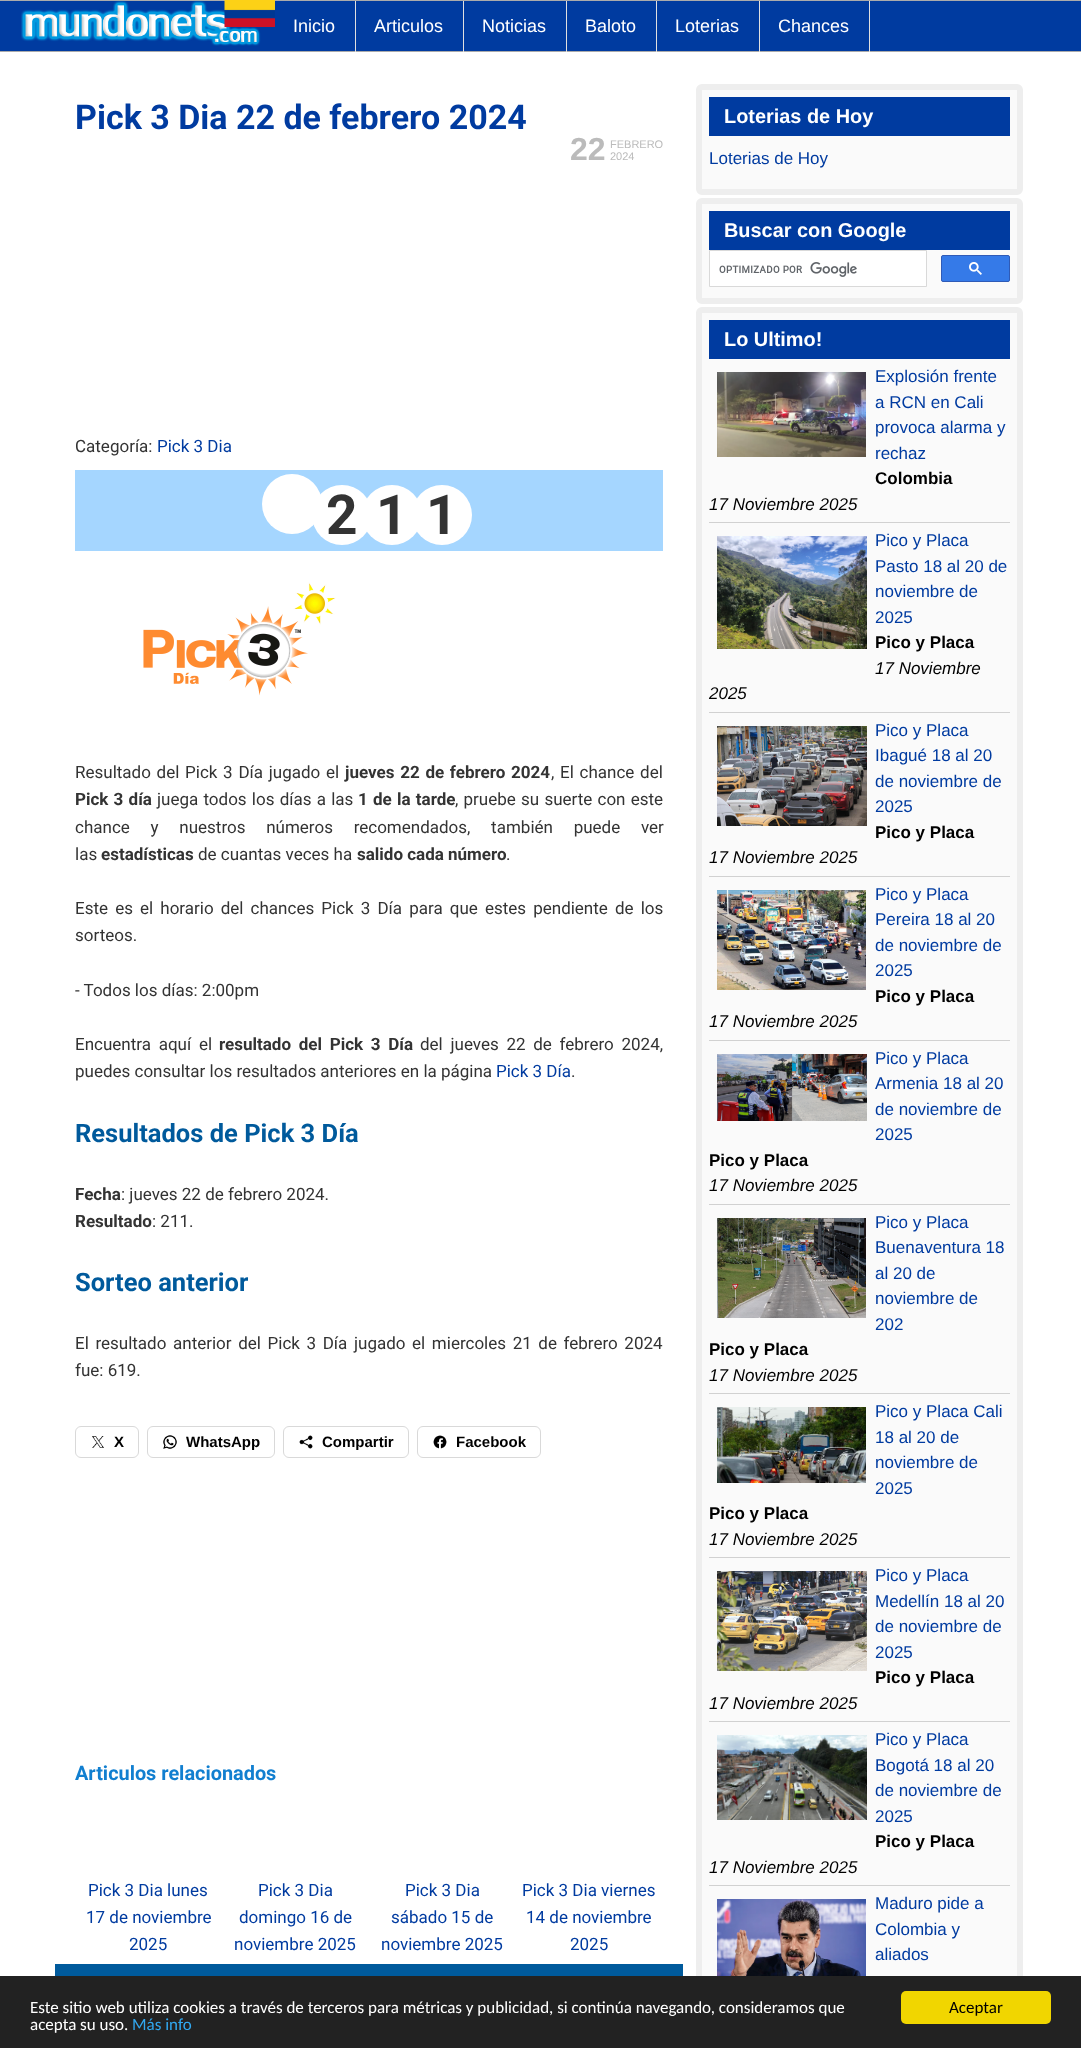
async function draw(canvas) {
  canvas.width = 1081
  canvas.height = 2048
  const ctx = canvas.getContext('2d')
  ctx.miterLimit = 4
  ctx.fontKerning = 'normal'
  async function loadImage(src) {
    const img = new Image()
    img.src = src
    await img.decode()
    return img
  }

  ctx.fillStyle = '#fff'
  ctx.fillRect(0, 0, 1081, 2048)
  ctx.fillStyle = '#003ba0'
  ctx.fillRect(0, 1, 1081, 50)
  ctx.fillStyle = '#ababab'
  ctx.fillRect(0, 0, 1081, 1)
  ctx.fillRect(0, 51, 1081, 1)
  ctx.drawImage(await loadImage('image0.png'), 21, 0, 254, 46)
  ctx.fillStyle = '#e0e0e0'
  ctx.fillRect(355, 1, 1, 51)
  ctx.font = '18px Liberation Sans'
  ctx.fillStyle = '#fff'
  ctx.fillText('Inicio', 293, 32)
  ctx.fillStyle = '#e0e0e0'
  ctx.fillRect(463, 1, 1, 51)
  ctx.fillStyle = '#fff'
  ctx.fillText('Articulos', 374, 32)
  ctx.fillStyle = '#e0e0e0'
  ctx.fillRect(566, 1, 1, 51)
  ctx.fillStyle = '#fff'
  ctx.fillText('Noticias', 482, 32)
  ctx.fillStyle = '#e0e0e0'
  ctx.fillRect(656, 1, 1, 51)
  ctx.fillStyle = '#fff'
  ctx.fillText('Baloto', 585, 32)
  ctx.fillStyle = '#e0e0e0'
  ctx.fillRect(759, 1, 1, 51)
  ctx.fillStyle = '#fff'
  ctx.fillText('Loterias', 675, 32)
  ctx.fillStyle = '#e0e0e0'
  ctx.fillRect(869, 1, 1, 51)
  ctx.fillStyle = '#fff'
  ctx.fillText('Chances', 778, 32)
  ctx.font = 'bold 34px Roboto'
  ctx.fillStyle = '#003ba0'
  ctx.fillText('Pick 3 Dia 22 de febrero 2024', 75, 129)
  ctx.font = 'bold 32px Liberation Sans'
  ctx.fillStyle = '#bbb'
  ctx.fillText('22', 570, 160)
  ctx.font = '11px Liberation Sans'
  ctx.fillText('FEBRERO', 610, 148)
  ctx.fillText('2024', 610, 160)
  ctx.font = '17px Roboto'
  ctx.fillStyle = '#333'
  ctx.fillText('Categoría:', 75, 452)
  ctx.fillStyle = '#003ba0'
  ctx.fillText('Pick 3 Dia', 157, 452)
  ctx.fillStyle = '#a5d6ff'
  ctx.fillRect(75, 470, 588, 81)
  ctx.fillStyle = '#fff'
  ctx.beginPath()
  ctx.arc(292, 504, 30, 0, 2 * Math.PI)
  ctx.fill()
  ctx.beginPath()
  ctx.arc(342, 515, 30, 0, 2 * Math.PI)
  ctx.fill()
  ctx.font = 'bold 55px Roboto'
  ctx.fillStyle = '#333'
  ctx.fillText('2', 326, 534)
  ctx.fillStyle = '#fff'
  ctx.beginPath()
  ctx.arc(392, 515, 30, 0, 2 * Math.PI)
  ctx.fill()
  ctx.fillStyle = '#333'
  ctx.fillText('1', 376, 534)
  ctx.fillStyle = '#fff'
  ctx.beginPath()
  ctx.arc(442, 515, 30, 0, 2 * Math.PI)
  ctx.fill()
  ctx.fillStyle = '#333'
  ctx.fillText('1', 426, 534)
  ctx.drawImage(await loadImage('image1.png'), 143, 582, 193, 114)
  ctx.wordSpacing = '1.5px'
  ctx.font = '17px Roboto'
  ctx.fillText('Resultado del Pick 3 Día jugado el', 75, 778)
  ctx.font = 'bold 17px Roboto'
  ctx.fillText('jueves 22 de febrero 2024', 345, 778)
  ctx.font = '17px Roboto'
  ctx.fillText(', El chance del', 551, 778)
  ctx.wordSpacing = '1px'
  ctx.font = 'bold 17px Roboto'
  ctx.fillText('Pick 3 día', 75, 805)
  ctx.font = '17px Roboto'
  ctx.fillText('juega todos los días a las', 157, 805)
  ctx.font = 'bold 17px Roboto'
  ctx.fillText('1 de la tarde', 358, 805)
  ctx.font = '17px Roboto'
  ctx.fillText(', pruebe su suerte con este', 455, 805)
  ctx.wordSpacing = '16.5px'
  ctx.fillText('chance y nuestros números recomendados, también puede ver', 75, 833)
  ctx.wordSpacing = '0px'
  ctx.fillText('las', 75, 860)
  ctx.font = 'bold 17px Roboto'
  ctx.fillText('estadísticas', 101, 860)
  ctx.font = '17px Roboto'
  ctx.fillText('de cuantas veces ha', 198, 860)
  ctx.font = 'bold 17px Roboto'
  ctx.fillText('salido cada número', 357, 860)
  ctx.font = '17px Roboto'
  ctx.fillText('.', 506, 860)
  ctx.wordSpacing = '2.9px'
  ctx.fillText('Este es el horario del chances Pick 3 Día para que estes pendiente de los', 75, 914)
  ctx.wordSpacing = '0px'
  ctx.fillText('sorteos.', 75, 941)
  ctx.fillText('- Todos los días: 2:00pm', 75, 996)
  ctx.wordSpacing = '3.5px'
  ctx.fillText('Encuentra aquí el', 75, 1050)
  ctx.font = 'bold 17px Roboto'
  ctx.fillText('resultado del Pick 3 Día', 219, 1050)
  ctx.font = '17px Roboto'
  ctx.fillText('del jueves 22 de febrero 2024,', 420, 1050)
  ctx.wordSpacing = '0px'
  ctx.fillText('puedes consultar los resultados anteriores en la página', 75, 1077)
  ctx.fillStyle = '#003ba0'
  ctx.fillText('Pick 3 Día', 496, 1077)
  ctx.fillStyle = '#333'
  ctx.fillText('.', 571, 1077)
  ctx.font = 'bold 25.5px Roboto'
  ctx.fillStyle = '#005a9c'
  ctx.fillText('Resultados de Pick 3 Día', 75, 1142)
  ctx.font = 'bold 17px Roboto'
  ctx.fillStyle = '#333'
  ctx.fillText('Fecha', 75, 1200)
  ctx.font = '17px Roboto'
  ctx.fillText(': jueves 22 de febrero 2024.', 121, 1200)
  ctx.font = 'bold 17px Roboto'
  ctx.fillText('Resultado', 75, 1227)
  ctx.font = '17px Roboto'
  ctx.fillText(': 211.', 152, 1227)
  ctx.font = 'bold 25.5px Roboto'
  ctx.fillStyle = '#005a9c'
  ctx.fillText('Sorteo anterior', 75, 1291)
  ctx.wordSpacing = '2.4px'
  ctx.font = '17px Roboto'
  ctx.fillStyle = '#333'
  ctx.fillText('El resultado anterior del Pick 3 Día jugado el miercoles 21 de febrero 2024', 75, 1349)
  ctx.wordSpacing = '0px'
  ctx.fillText('fue: 619.', 75, 1376)
  ctx.beginPath()
  ctx.roundRect(75.5, 1426.5, 63, 31, 5.5)
  ctx.strokeStyle = '#d9d9d9'
  ctx.stroke()
  ctx.drawImage(await loadImage('image2.png'), 92, 1436, 12, 12)
  ctx.font = 'bold 15px Liberation Sans'
  ctx.fillStyle = '#000'
  ctx.fillText('X', 114, 1447)
  ctx.beginPath()
  ctx.roundRect(147.5, 1426.5, 127, 31, 5.5)
  ctx.stroke()
  ctx.drawImage(await loadImage('image3.png'), 163, 1435, 14, 14)
  ctx.fillText('WhatsApp', 186, 1447)
  ctx.beginPath()
  ctx.roundRect(283.5, 1426.5, 125, 31, 5.5)
  ctx.stroke()
  ctx.drawImage(await loadImage('image4.png'), 299, 1435, 14, 14)
  ctx.fillText('Compartir', 322, 1447)
  ctx.beginPath()
  ctx.roundRect(417.5, 1426.5, 123, 31, 5.5)
  ctx.stroke()
  ctx.drawImage(await loadImage('image5.png'), 433, 1435, 14, 14)
  ctx.fillText('Facebook', 456, 1447)
  ctx.font = 'bold 19.9px Roboto'
  ctx.fillStyle = '#117fd0'
  ctx.fillText('Articulos relacionados', 75, 1780)
  ctx.font = '17px Roboto'
  ctx.fillStyle = '#003ba0'
  ctx.fillText('Pick 3 Dia lunes', 88, 1896)
  ctx.fillText('17 de noviembre', 86, 1923)
  ctx.fillText('2025', 129, 1950)
  ctx.fillText('Pick 3 Dia', 258, 1896)
  ctx.fillText('domingo 16 de', 239, 1923)
  ctx.fillText('noviembre 2025', 234, 1950)
  ctx.fillText('Pick 3 Dia', 405, 1896)
  ctx.fillText('sábado 15 de', 391, 1923)
  ctx.fillText('noviembre 2025', 381, 1950)
  ctx.fillText('Pick 3 Dia viernes', 522, 1896)
  ctx.fillText('14 de noviembre', 526, 1923)
  ctx.fillText('2025', 570, 1950)
  ctx.fillStyle = '#005a9c'
  ctx.fillRect(55, 1964, 628, 12)
  ctx.fillStyle = '#fafafa'
  ctx.beginPath()
  ctx.roundRect(699, 87, 321, 105, 3)
  ctx.fill()
  ctx.strokeStyle = '#eee'
  ctx.lineWidth = 6
  ctx.stroke()
  ctx.fillStyle = '#003ba0'
  ctx.fillRect(709, 97, 301, 39)
  ctx.font = 'bold 19.9px Liberation Sans'
  ctx.fillStyle = '#fff'
  ctx.fillText('Loterias de Hoy', 724, 123)
  ctx.font = '17px Liberation Sans'
  ctx.fillStyle = '#003ba0'
  ctx.fillText('Loterias de Hoy', 709, 164)
  ctx.fillStyle = '#fafafa'
  ctx.beginPath()
  ctx.roundRect(699, 201, 321, 100, 3)
  ctx.fill()
  ctx.stroke()
  ctx.fillStyle = '#003ba0'
  ctx.fillRect(709, 211, 301, 39)
  ctx.font = 'bold 19.9px Liberation Sans'
  ctx.fillStyle = '#fff'
  ctx.fillText('Buscar con Google', 724, 237)
  ctx.beginPath()
  ctx.rect(709.5, 250.5, 217, 36)
  ctx.fill()
  ctx.strokeStyle = '#d9d9d9'
  ctx.lineWidth = 1
  ctx.stroke()
  ctx.drawImage(await loadImage('image6.png'), 719, 262, 138, 15)
  ctx.fillStyle = '#357ae8'
  ctx.beginPath()
  ctx.roundRect(941.5, 255.5, 68, 26, 1.5)
  ctx.fill()
  ctx.strokeStyle = '#2f5bb7'
  ctx.stroke()
  ctx.drawImage(await loadImage('image7.png'), 969, 262, 13, 13)
  ctx.fillStyle = '#fafafa'
  ctx.beginPath()
  ctx.roundRect(699, 310, 321, 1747, 3)
  ctx.fill()
  ctx.strokeStyle = '#eee'
  ctx.lineWidth = 6
  ctx.stroke()
  ctx.fillStyle = '#003ba0'
  ctx.fillRect(709, 320, 301, 39)
  ctx.fillStyle = '#fff'
  ctx.fillText('Lo Ultimo!', 724, 346)
  ctx.fillStyle = '#d1d1d1'
  ctx.fillRect(709, 522, 301, 1)
  ctx.drawImage(await loadImage('image8.png'), 717, 372, 149, 85)
  ctx.font = '17px Liberation Sans'
  ctx.fillStyle = '#003ba0'
  ctx.fillText('Explosión frente', 875, 382)
  ctx.fillText('a RCN en Cali', 875, 408)
  ctx.fillText('provoca alarma y', 875, 433)
  ctx.fillText('rechaz', 875, 459)
  ctx.font = 'bold 17px Liberation Sans'
  ctx.fillStyle = '#000'
  ctx.fillText('Colombia', 875, 484)
  ctx.font = 'italic 17px Liberation Sans'
  ctx.fillText('17 Noviembre 2025', 709, 510)
  ctx.fillStyle = '#d1d1d1'
  ctx.fillRect(709, 712, 301, 1)
  ctx.drawImage(await loadImage('image9.png'), 717, 536, 150, 113)
  ctx.font = '17px Liberation Sans'
  ctx.fillStyle = '#003ba0'
  ctx.fillText('Pico y Placa', 875, 546)
  ctx.fillText('Pasto 18 al 20 de', 875, 572)
  ctx.fillText('noviembre de', 875, 597)
  ctx.fillText('2025', 875, 623)
  ctx.font = 'bold 17px Liberation Sans'
  ctx.fillStyle = '#000'
  ctx.fillText('Pico y Placa', 875, 648)
  ctx.font = 'italic 17px Liberation Sans'
  ctx.fillText('17 Noviembre', 875, 674)
  ctx.fillText('2025', 709, 699)
  ctx.fillStyle = '#d1d1d1'
  ctx.fillRect(709, 876, 301, 1)
  ctx.drawImage(await loadImage('image10.png'), 717, 726, 150, 100)
  ctx.font = '17px Liberation Sans'
  ctx.fillStyle = '#003ba0'
  ctx.fillText('Pico y Placa', 875, 736)
  ctx.fillText('Ibagué 18 al 20', 875, 761)
  ctx.fillText('de noviembre de', 875, 787)
  ctx.fillText('2025', 875, 812)
  ctx.font = 'bold 17px Liberation Sans'
  ctx.fillStyle = '#000'
  ctx.fillText('Pico y Placa', 875, 838)
  ctx.font = 'italic 17px Liberation Sans'
  ctx.fillText('17 Noviembre 2025', 709, 863)
  ctx.fillStyle = '#d1d1d1'
  ctx.fillRect(709, 1040, 301, 1)
  ctx.drawImage(await loadImage('image11.png'), 717, 890, 149, 100)
  ctx.font = '17px Liberation Sans'
  ctx.fillStyle = '#003ba0'
  ctx.fillText('Pico y Placa', 875, 900)
  ctx.fillText('Pereira 18 al 20', 875, 925)
  ctx.fillText('de noviembre de', 875, 951)
  ctx.fillText('2025', 875, 976)
  ctx.font = 'bold 17px Liberation Sans'
  ctx.fillStyle = '#000'
  ctx.fillText('Pico y Placa', 875, 1002)
  ctx.font = 'italic 17px Liberation Sans'
  ctx.fillText('17 Noviembre 2025', 709, 1027)
  ctx.fillStyle = '#d1d1d1'
  ctx.fillRect(709, 1204, 301, 1)
  ctx.drawImage(await loadImage('image12.png'), 717, 1054, 150, 67)
  ctx.font = '17px Liberation Sans'
  ctx.fillStyle = '#003ba0'
  ctx.fillText('Pico y Placa', 875, 1064)
  ctx.fillText('Armenia 18 al 20', 875, 1089)
  ctx.fillText('de noviembre de', 875, 1115)
  ctx.fillText('2025', 875, 1140)
  ctx.font = 'bold 17px Liberation Sans'
  ctx.fillStyle = '#000'
  ctx.fillText('Pico y Placa', 709, 1166)
  ctx.font = 'italic 17px Liberation Sans'
  ctx.fillText('17 Noviembre 2025', 709, 1191)
  ctx.fillStyle = '#d1d1d1'
  ctx.fillRect(709, 1393, 301, 1)
  ctx.drawImage(await loadImage('image13.png'), 717, 1218, 149, 100)
  ctx.font = '17px Liberation Sans'
  ctx.fillStyle = '#003ba0'
  ctx.fillText('Pico y Placa', 875, 1228)
  ctx.fillText('Buenaventura 18', 875, 1253)
  ctx.fillText('al 20 de', 875, 1279)
  ctx.fillText('noviembre de', 875, 1304)
  ctx.fillText('202', 875, 1330)
  ctx.font = 'bold 17px Liberation Sans'
  ctx.fillStyle = '#000'
  ctx.fillText('Pico y Placa', 709, 1355)
  ctx.font = 'italic 17px Liberation Sans'
  ctx.fillText('17 Noviembre 2025', 709, 1381)
  ctx.fillStyle = '#d1d1d1'
  ctx.fillRect(709, 1557, 301, 1)
  ctx.drawImage(await loadImage('image14.png'), 717, 1407, 149, 76)
  ctx.font = '17px Liberation Sans'
  ctx.fillStyle = '#003ba0'
  ctx.fillText('Pico y Placa Cali', 875, 1417)
  ctx.fillText('18 al 20 de', 875, 1443)
  ctx.fillText('noviembre de', 875, 1468)
  ctx.fillText('2025', 875, 1494)
  ctx.font = 'bold 17px Liberation Sans'
  ctx.fillStyle = '#000'
  ctx.fillText('Pico y Placa', 709, 1519)
  ctx.font = 'italic 17px Liberation Sans'
  ctx.fillText('17 Noviembre 2025', 709, 1545)
  ctx.fillStyle = '#d1d1d1'
  ctx.fillRect(709, 1721, 301, 1)
  ctx.drawImage(await loadImage('image15.png'), 717, 1571, 150, 100)
  ctx.font = '17px Liberation Sans'
  ctx.fillStyle = '#003ba0'
  ctx.fillText('Pico y Placa', 875, 1581)
  ctx.fillText('Medellín 18 al 20', 875, 1607)
  ctx.fillText('de noviembre de', 875, 1632)
  ctx.fillText('2025', 875, 1658)
  ctx.font = 'bold 17px Liberation Sans'
  ctx.fillStyle = '#000'
  ctx.fillText('Pico y Placa', 875, 1683)
  ctx.font = 'italic 17px Liberation Sans'
  ctx.fillText('17 Noviembre 2025', 709, 1709)
  ctx.fillStyle = '#d1d1d1'
  ctx.fillRect(709, 1885, 301, 1)
  ctx.drawImage(await loadImage('image16.png'), 717, 1735, 150, 85)
  ctx.font = '17px Liberation Sans'
  ctx.fillStyle = '#003ba0'
  ctx.fillText('Pico y Placa', 875, 1745)
  ctx.fillText('Bogotá 18 al 20', 875, 1771)
  ctx.fillText('de noviembre de', 875, 1796)
  ctx.fillText('2025', 875, 1822)
  ctx.font = 'bold 17px Liberation Sans'
  ctx.fillStyle = '#000'
  ctx.fillText('Pico y Placa', 875, 1847)
  ctx.font = 'italic 17px Liberation Sans'
  ctx.fillText('17 Noviembre 2025', 709, 1873)
  ctx.drawImage(await loadImage('image17.png'), 717, 1899, 149, 77)
  ctx.font = '17px Liberation Sans'
  ctx.fillStyle = '#003ba0'
  ctx.fillText('Maduro pide a', 875, 1909)
  ctx.fillText('Colombia y', 875, 1935)
  ctx.fillText('aliados', 875, 1960)
  ctx.fillStyle = '#222'
  ctx.fillRect(0, 1976, 1081, 72)
  ctx.font = '17px Carlito'
  ctx.fillStyle = '#fff'
  ctx.fillText('Este sitio web utiliza cookies a través de terceros para métricas y publicidad, si continúa navegando, consideramos que', 30, 2013)
  ctx.fillText('acepta su uso.', 30, 2030)
  ctx.fillStyle = '#31a8f0'
  ctx.fillText('Más info', 132, 2030)
  ctx.fillStyle = '#f1d600'
  ctx.beginPath()
  ctx.roundRect(901, 1991, 150, 33, 5)
  ctx.fill()
  ctx.fillStyle = '#000'
  ctx.fillText('Aceptar', 949, 2013)
}

draw(document.querySelector('canvas'))
